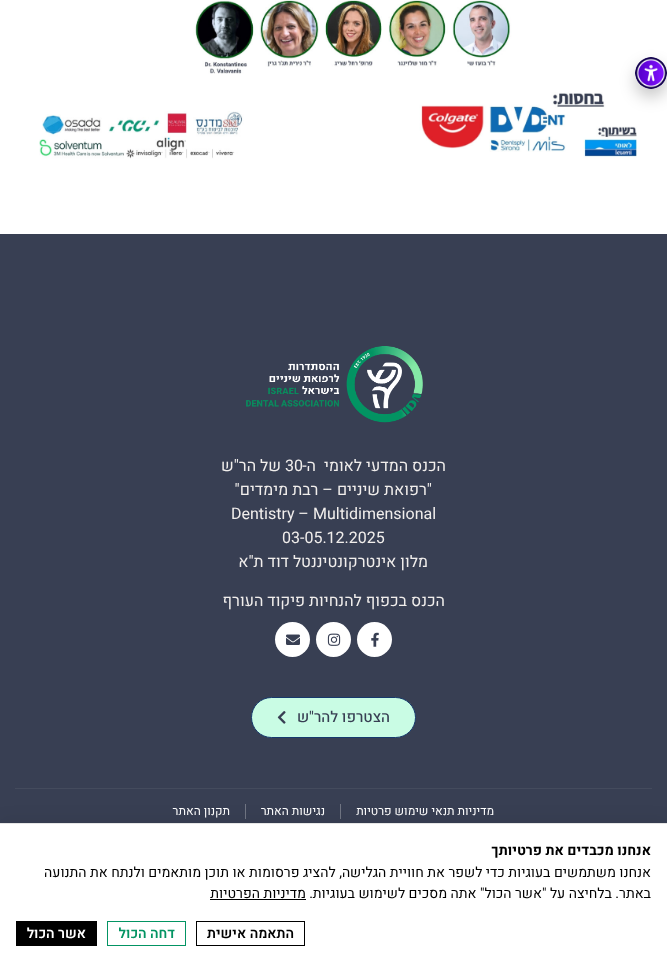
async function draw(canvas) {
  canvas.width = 667
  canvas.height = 962
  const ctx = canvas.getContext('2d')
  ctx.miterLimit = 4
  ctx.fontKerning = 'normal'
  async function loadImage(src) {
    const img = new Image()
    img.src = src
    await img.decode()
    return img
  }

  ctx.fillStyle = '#fff'
  ctx.fillRect(0, 0, 667, 962)
  ctx.drawImage(await loadImage('image1.png'), 39, 0, 598, 159)
  ctx.fillStyle = '#00000038'
  ctx.filter = 'blur(8px)'
  ctx.beginPath()
  ctx.roundRect(635, 65, 32, 32, 16)
  ctx.fill()
  ctx.filter = 'none'
  ctx.fillStyle = '#fff'
  ctx.beginPath()
  ctx.arc(651, 73, 16, 0, 2 * Math.PI)
  ctx.fill()
  ctx.drawImage(await loadImage('image0.png'), 635, 57, 32, 32)
  ctx.fillStyle = '#383f53'
  ctx.fillRect(0, 234, 667, 589)
  ctx.drawImage(await loadImage('image2.png'), 246, 346, 177, 77)
  ctx.direction = 'rtl'
  ctx.font = '16px Heebo'
  ctx.fillStyle = '#f1eeec'
  ctx.fillText('הכנס המדעי לאומי  ה-', 446, 471)
  ctx.direction = 'ltr'
  ctx.fillText('30', 285, 471)
  ctx.direction = 'rtl'
  ctx.fillText('של הר"ש', 281, 471)
  ctx.fillText('"רפואת שיניים – רבת מימדים"', 432, 495)
  ctx.direction = 'ltr'
  ctx.fillText('Dentistry – Multidimensional', 231, 519)
  ctx.fillText('03-05.12.2025', 282, 543)
  ctx.direction = 'rtl'
  ctx.fillText('מלון אינטרקונטיננטל דוד ת"א', 428, 567)
  ctx.fillText('הכנס בכפוף להנחיות פיקוד העורף', 445, 606)
  ctx.fillStyle = '#fff'
  ctx.beginPath()
  ctx.arc(374.5, 639.5, 17.5, 0, 2 * Math.PI)
  ctx.fill()
  ctx.drawImage(await loadImage('image3.png'), 371, 632, 8, 15)
  ctx.beginPath()
  ctx.arc(333.5, 639.5, 17.5, 0, 2 * Math.PI)
  ctx.fill()
  ctx.drawImage(await loadImage('image4.png'), 327, 633, 14, 13)
  ctx.beginPath()
  ctx.arc(292.5, 639.5, 17.5, 0, 2 * Math.PI)
  ctx.fill()
  ctx.drawImage(await loadImage('image5.png'), 286, 634, 14, 11)
  ctx.fillStyle = '#c9fce4'
  ctx.beginPath()
  ctx.roundRect(251.5, 697.5, 164, 40, 20)
  ctx.fill()
  ctx.strokeStyle = '#16396c'
  ctx.stroke()
  ctx.font = '500 15px Heebo'
  ctx.fillStyle = '#383f53'
  ctx.fillText('הצטרפו להר"ש', 390, 722)
  ctx.drawImage(await loadImage('image6.png'), 277, 711, 9, 13)
  ctx.fillStyle = '#444b5d'
  ctx.fillRect(15, 788, 637, 1)
  ctx.font = '12px Heebo'
  ctx.fillStyle = '#fff'
  ctx.fillText('מדיניות תנאי שימוש פרטיות', 494, 815)
  ctx.fillStyle = '#707583'
  ctx.fillRect(340, 804, 1, 15)
  ctx.fillStyle = '#fff'
  ctx.fillText('נגישות האתר', 325, 815)
  ctx.fillStyle = '#707583'
  ctx.fillRect(245, 804, 1, 15)
  ctx.fillStyle = '#fff'
  ctx.fillText('תקנון האתר', 230, 815)
  ctx.fillStyle = '#0000000f'
  ctx.filter = 'blur(8px)'
  ctx.beginPath()
  ctx.rect(0, 819, 667, 139)
  ctx.fill()
  ctx.filter = 'none'
  ctx.fillStyle = '#fff'
  ctx.fillRect(0, 824, 667, 138)
  ctx.fillStyle = '#e5e5e5'
  ctx.fillRect(0, 823, 667, 1)
  ctx.font = 'bold 14px Heebo'
  ctx.fillStyle = '#000'
  ctx.fillText('אנחנו מכבדים את פרטיותך', 651, 855)
  ctx.font = '14px Heebo'
  ctx.fillText('אנחנו משתמשים בעוגיות כדי לשפר את חוויית הגלישה, להציג פרסומות או תוכן מותאמים ולנתח את התנועה', 651, 877)
  ctx.fillText('באתר. בלחיצה על "אשר הכול" אתה מסכים לשימוש בעוגיות.', 651, 898)
  ctx.fillText('מדיניות הפרטיות', 306, 898)
  ctx.fillRect(210, 899, 96, 1)
  ctx.strokeStyle = '#000'
  ctx.strokeRect(196.5, 921.5, 108, 24)
  ctx.font = '600 14px Heebo'
  ctx.fillText('התאמה אישית', 294, 938)
  ctx.strokeStyle = '#039463'
  ctx.strokeRect(107.5, 921.5, 78, 24)
  ctx.fillStyle = '#039463'
  ctx.fillText('דחה הכול', 175, 938)
  ctx.fillStyle = '#000'
  ctx.fillRect(16, 921, 81, 25)
  ctx.fillStyle = '#fff'
  ctx.fillText('אשר הכול', 86, 938)
}

draw(document.querySelector('canvas'))
